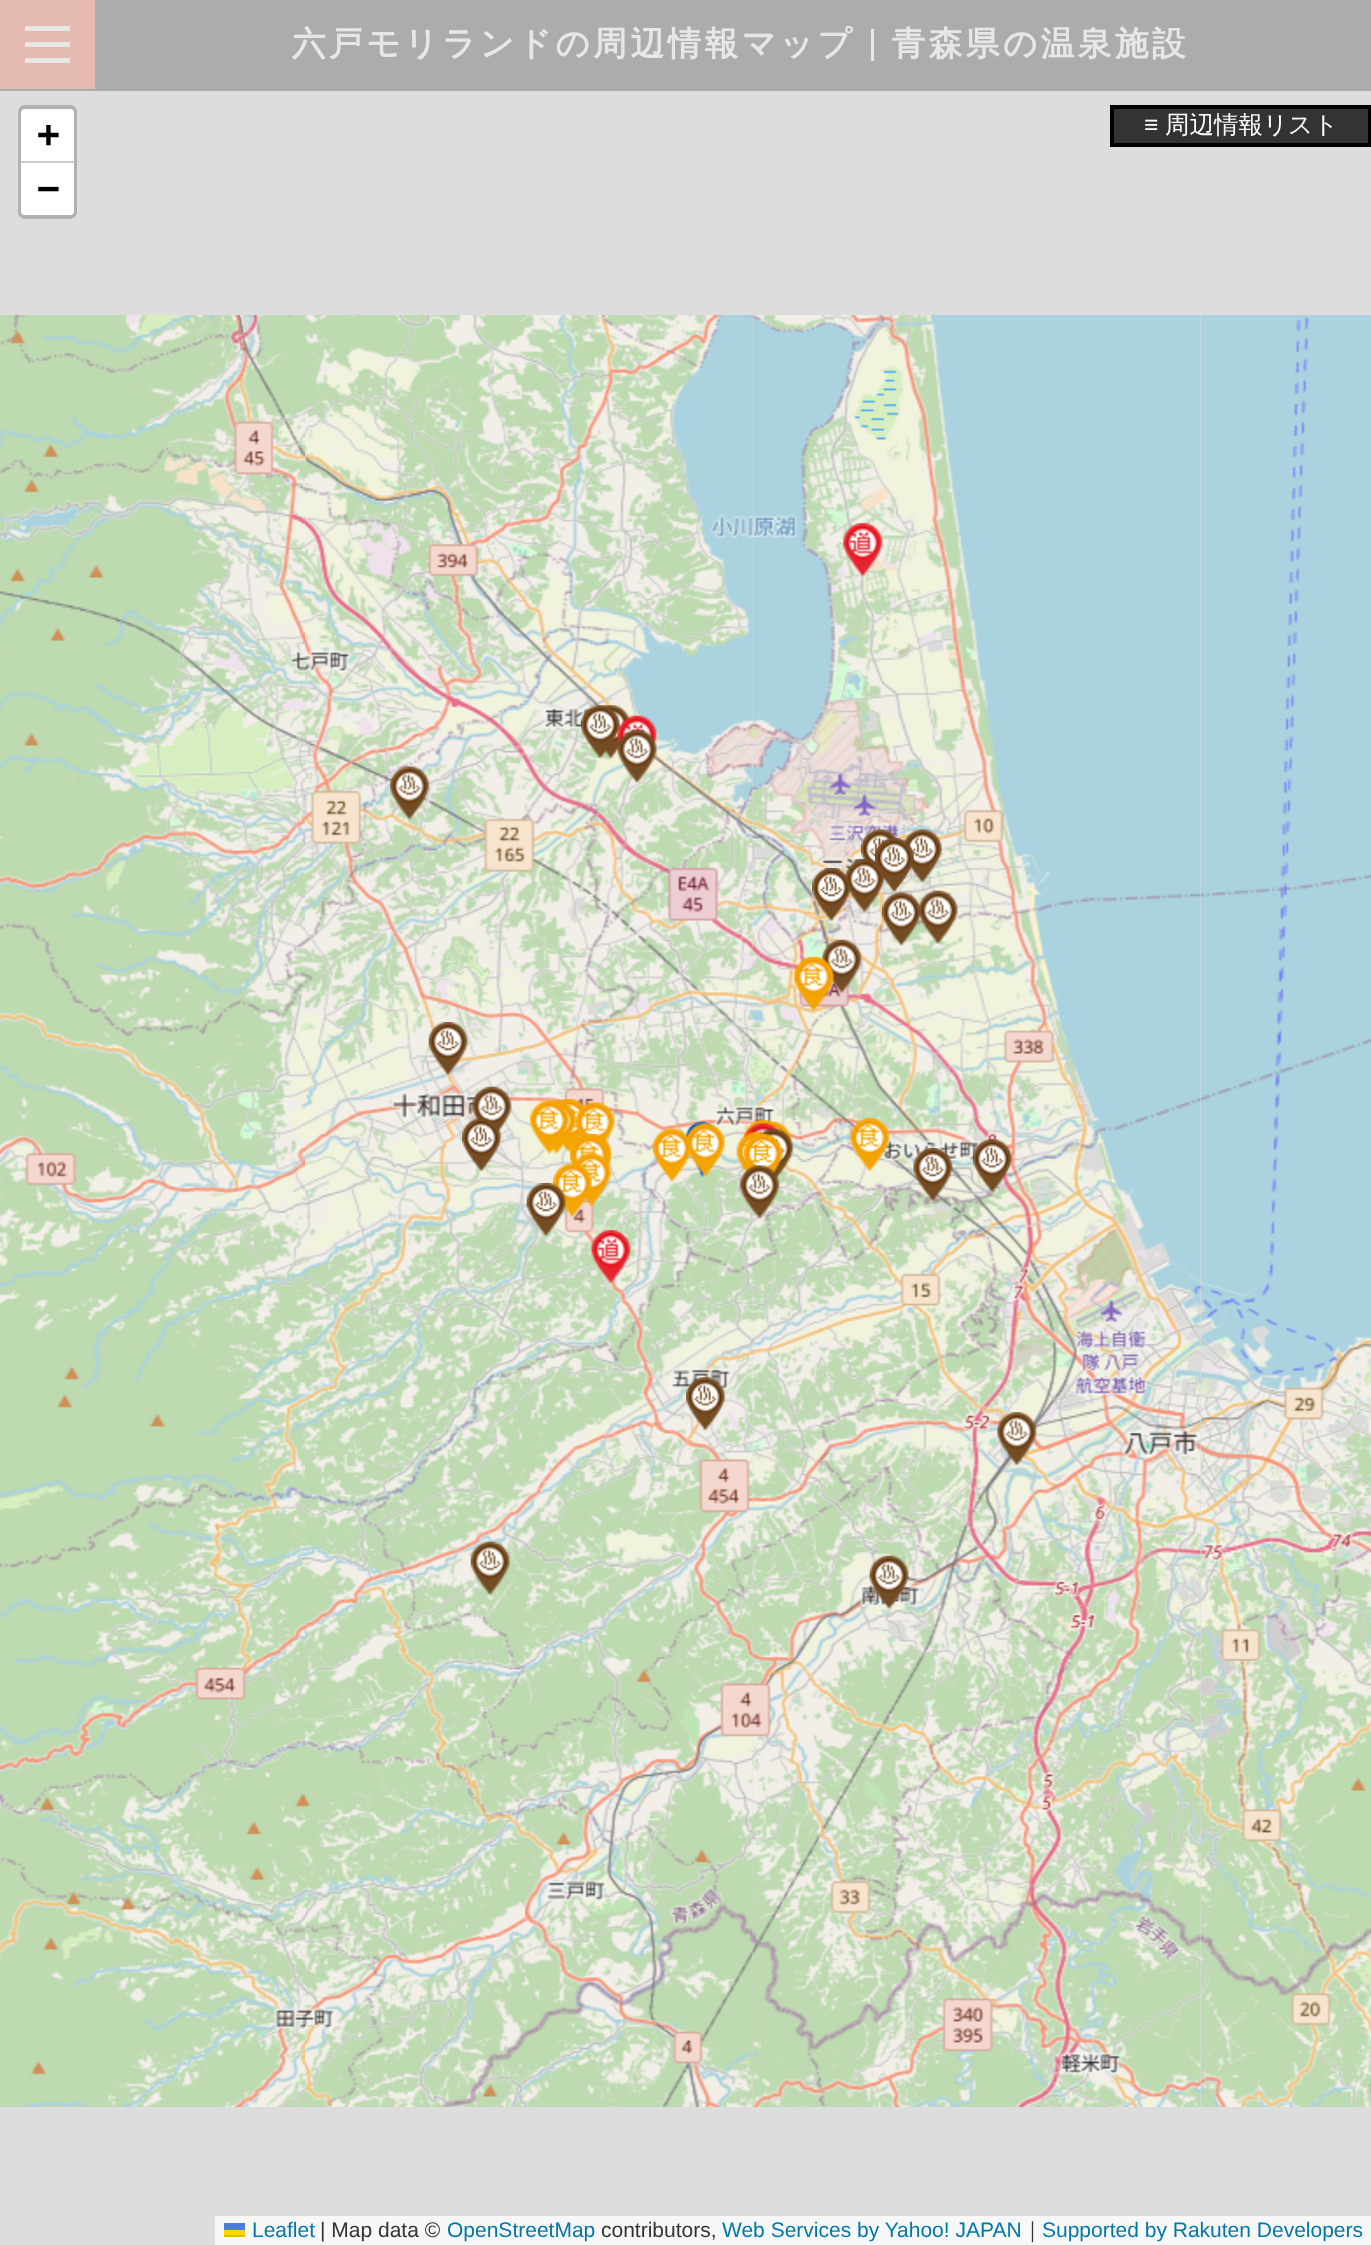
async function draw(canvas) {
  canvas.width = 1371
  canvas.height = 2245
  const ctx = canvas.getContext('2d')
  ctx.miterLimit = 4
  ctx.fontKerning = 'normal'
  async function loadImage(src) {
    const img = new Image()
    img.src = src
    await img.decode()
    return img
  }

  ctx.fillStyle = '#ddd'
  ctx.fillRect(0, 0, 1371, 2245)
  ctx.fillStyle = '#acacac'
  ctx.fillRect(0, 0, 1371, 91)
  ctx.fillStyle = '#e5baaf'
  ctx.fillRect(0, 0, 95, 89)
  ctx.fillStyle = '#e7e7e7'
  ctx.fillRect(25, 42, 45, 5)
  ctx.fillRect(25, 26, 45, 5)
  ctx.fillRect(25, 58, 45, 5)
  ctx.save()
  ctx.beginPath()
  ctx.rect(292, 26, 896, 35)
  ctx.clip()
  ctx.letterSpacing = '3.5px'
  ctx.font = 'bold 33.6px WenQuanYi Zen Hei'
  ctx.fillText('六戸モリランドの周辺情報マップ｜青森県の温泉施設', 292, 55)
  ctx.restore()
  ctx.fillStyle = '#333'
  ctx.beginPath()
  ctx.rect(1112, 107, 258, 38)
  ctx.fill()
  ctx.strokeStyle = '#000'
  ctx.lineWidth = 4
  ctx.stroke()
  ctx.font = '24.5px Liberation Sans'
  ctx.fillStyle = '#fff'
  ctx.fillText('≡', 1144, 133)
  ctx.font = '500 24.5px WenQuanYi Zen Hei'
  ctx.fillText('周辺情報リスト', 1165, 133)
  ctx.beginPath()
  ctx.roundRect(20, 107, 55, 110, 5)
  ctx.strokeStyle = '#b1b1b1'
  ctx.stroke()
  ctx.beginPath()
  ctx.roundRect(21, 109, 53, 54, [4, 4, 0, 0])
  ctx.fill()
  ctx.fillStyle = '#ccc'
  ctx.fillRect(21, 161, 53, 2)
  ctx.font = 'bold 38px DejaVu Sans Mono'
  ctx.fillStyle = '#000'
  ctx.fillText('+', 37, 147)
  ctx.fillStyle = '#fff'
  ctx.beginPath()
  ctx.roundRect(21, 163, 53, 52, [0, 0, 4, 4])
  ctx.fill()
  ctx.fillStyle = '#000'
  ctx.fillText('−', 37, 201)
  ctx.fillStyle = '#f8f8f8'
  ctx.fillRect(215, 2216, 1156, 29)
  ctx.font = '21px Liberation Sans'
  ctx.fillStyle = '#0078a8'
  ctx.fillText('Leaflet', 252, 2237)
  ctx.fillStyle = '#4c7be1'
  ctx.fillRect(224, 2223, 21, 7)
  ctx.fillStyle = '#ffd500'
  ctx.fillRect(224, 2230, 21, 5)
  ctx.fillStyle = '#e0bc00'
  ctx.fillRect(224, 2235, 21, 2)
  ctx.fillStyle = '#333'
  ctx.fillText('| Map data ©', 320, 2237)
  ctx.fillStyle = '#0078a8'
  ctx.fillText('OpenStreetMap', 447, 2237)
  ctx.fillStyle = '#333'
  ctx.fillText('contributors,', 601, 2237)
  ctx.fillStyle = '#0078a8'
  ctx.fillText('Web Services by Yahoo! JAPAN', 722, 2237)
  ctx.font = '500 21px WenQuanYi Zen Hei'
  ctx.fillStyle = '#333'
  ctx.fillText('｜', 1022, 2237)
  ctx.font = '21px Liberation Sans'
  ctx.fillStyle = '#0078a8'
  ctx.fillText('Supported by Rakuten Developers', 1042, 2237)
  ctx.drawImage(await loadImage('image0.png'), 0, 315, 305, 448)
  ctx.drawImage(await loadImage('image1.png'), 305, 315, 448, 448)
  ctx.drawImage(await loadImage('image2.png'), 752, 315, 449, 448)
  ctx.drawImage(await loadImage('image3.png'), 1201, 315, 170, 448)
  ctx.drawImage(await loadImage('image4.png'), 0, 763, 305, 448)
  ctx.drawImage(await loadImage('image5.png'), 305, 763, 448, 448)
  ctx.drawImage(await loadImage('image6.png'), 752, 763, 449, 448)
  ctx.drawImage(await loadImage('image7.png'), 1201, 763, 170, 448)
  ctx.drawImage(await loadImage('image8.png'), 0, 1211, 305, 448)
  ctx.drawImage(await loadImage('image9.png'), 305, 1211, 448, 448)
  ctx.drawImage(await loadImage('image10.png'), 752, 1211, 449, 448)
  ctx.drawImage(await loadImage('image11.png'), 1201, 1211, 170, 448)
  ctx.drawImage(await loadImage('image12.png'), 0, 1659, 305, 448)
  ctx.drawImage(await loadImage('image13.png'), 305, 1659, 448, 448)
  ctx.drawImage(await loadImage('image14.png'), 752, 1659, 449, 448)
  ctx.drawImage(await loadImage('image15.png'), 1201, 1659, 170, 448)
  ctx.drawImage(await loadImage('image16.png'), 843, 523, 40, 54)
  ctx.drawImage(await loadImage('image18.png'), 597, 705, 34, 54)
  ctx.drawImage(await loadImage('image17.png'), 581, 705, 39, 54)
  ctx.drawImage(await loadImage('image19.png'), 617, 715, 40, 34)
  ctx.drawImage(await loadImage('image20.png'), 617, 729, 40, 54)
  ctx.drawImage(await loadImage('image21.png'), 390, 766, 40, 54)
  ctx.drawImage(await loadImage('image22.png'), 861, 829, 39, 54)
  ctx.drawImage(await loadImage('image23.png'), 903, 829, 39, 54)
  ctx.drawImage(await loadImage('image24.png'), 875, 838, 39, 54)
  ctx.drawImage(await loadImage('image27.png'), 875, 838, 39, 54)
  ctx.drawImage(await loadImage('image26.png'), 845, 859, 40, 54)
  ctx.drawImage(await loadImage('image25.png'), 812, 868, 39, 53)
  ctx.drawImage(await loadImage('image28.png'), 918, 890, 40, 54)
  ctx.drawImage(await loadImage('image29.png'), 882, 892, 39, 54)
  ctx.drawImage(await loadImage('image31.png'), 822, 939, 40, 54)
  ctx.drawImage(await loadImage('image30.png'), 794, 957, 40, 54)
  ctx.drawImage(await loadImage('image32.png'), 794, 957, 40, 54)
  ctx.drawImage(await loadImage('image33.png'), 428, 1022, 40, 53)
  ctx.drawImage(await loadImage('image34.png'), 472, 1086, 40, 47)
  ctx.drawImage(await loadImage('image35.png'), 554, 1099, 32, 53)
  ctx.drawImage(await loadImage('image38.png'), 544, 1100, 33, 54)
  ctx.drawImage(await loadImage('image36.png'), 530, 1100, 40, 54)
  ctx.drawImage(await loadImage('image37.png'), 462, 1118, 39, 54)
  ctx.drawImage(await loadImage('image39.png'), 575, 1102, 40, 42)
  ctx.drawImage(await loadImage('image40.png'), 686, 1121, 32, 57)
  ctx.drawImage(await loadImage('image41.png'), 743, 1120, 35, 21)
  ctx.drawImage(await loadImage('image42.png'), 850, 1118, 40, 54)
  ctx.drawImage(await loadImage('image43.png'), 686, 1123, 39, 54)
  ctx.drawImage(await loadImage('image44.png'), 756, 1121, 36, 30)
  ctx.drawImage(await loadImage('image45.png'), 652, 1128, 40, 54)
  ctx.drawImage(await loadImage('image46.png'), 743, 1123, 38, 18)
  ctx.drawImage(await loadImage('image50.png'), 572, 1134, 40, 33)
  ctx.drawImage(await loadImage('image47.png'), 570, 1134, 40, 33)
  ctx.drawImage(await loadImage('image49.png'), 757, 1128, 37, 53)
  ctx.drawImage(await loadImage('image48.png'), 736, 1132, 39, 43)
  ctx.drawImage(await loadImage('image51.png'), 743, 1134, 40, 42)
  ctx.drawImage(await loadImage('image53.png'), 572, 1137, 40, 31)
  ctx.drawImage(await loadImage('image52.png'), 570, 1137, 40, 30)
  ctx.drawImage(await loadImage('image54.png'), 973, 1139, 39, 54)
  ctx.drawImage(await loadImage('image55.png'), 570, 1146, 40, 21)
  ctx.drawImage(await loadImage('image56.png'), 913, 1148, 40, 53)
  ctx.drawImage(await loadImage('image57.png'), 572, 1153, 40, 54)
  ctx.drawImage(await loadImage('image59.png'), 553, 1163, 39, 54)
  ctx.drawImage(await loadImage('image58.png'), 526, 1183, 40, 53)
  ctx.drawImage(await loadImage('image60.png'), 740, 1165, 40, 54)
  ctx.drawImage(await loadImage('image61.png'), 591, 1230, 40, 54)
  ctx.drawImage(await loadImage('image62.png'), 686, 1377, 39, 54)
  ctx.drawImage(await loadImage('image63.png'), 997, 1412, 40, 54)
  ctx.drawImage(await loadImage('image64.png'), 470, 1541, 40, 54)
  ctx.drawImage(await loadImage('image65.png'), 869, 1555, 40, 54)
}

draw(document.querySelector('canvas'))
